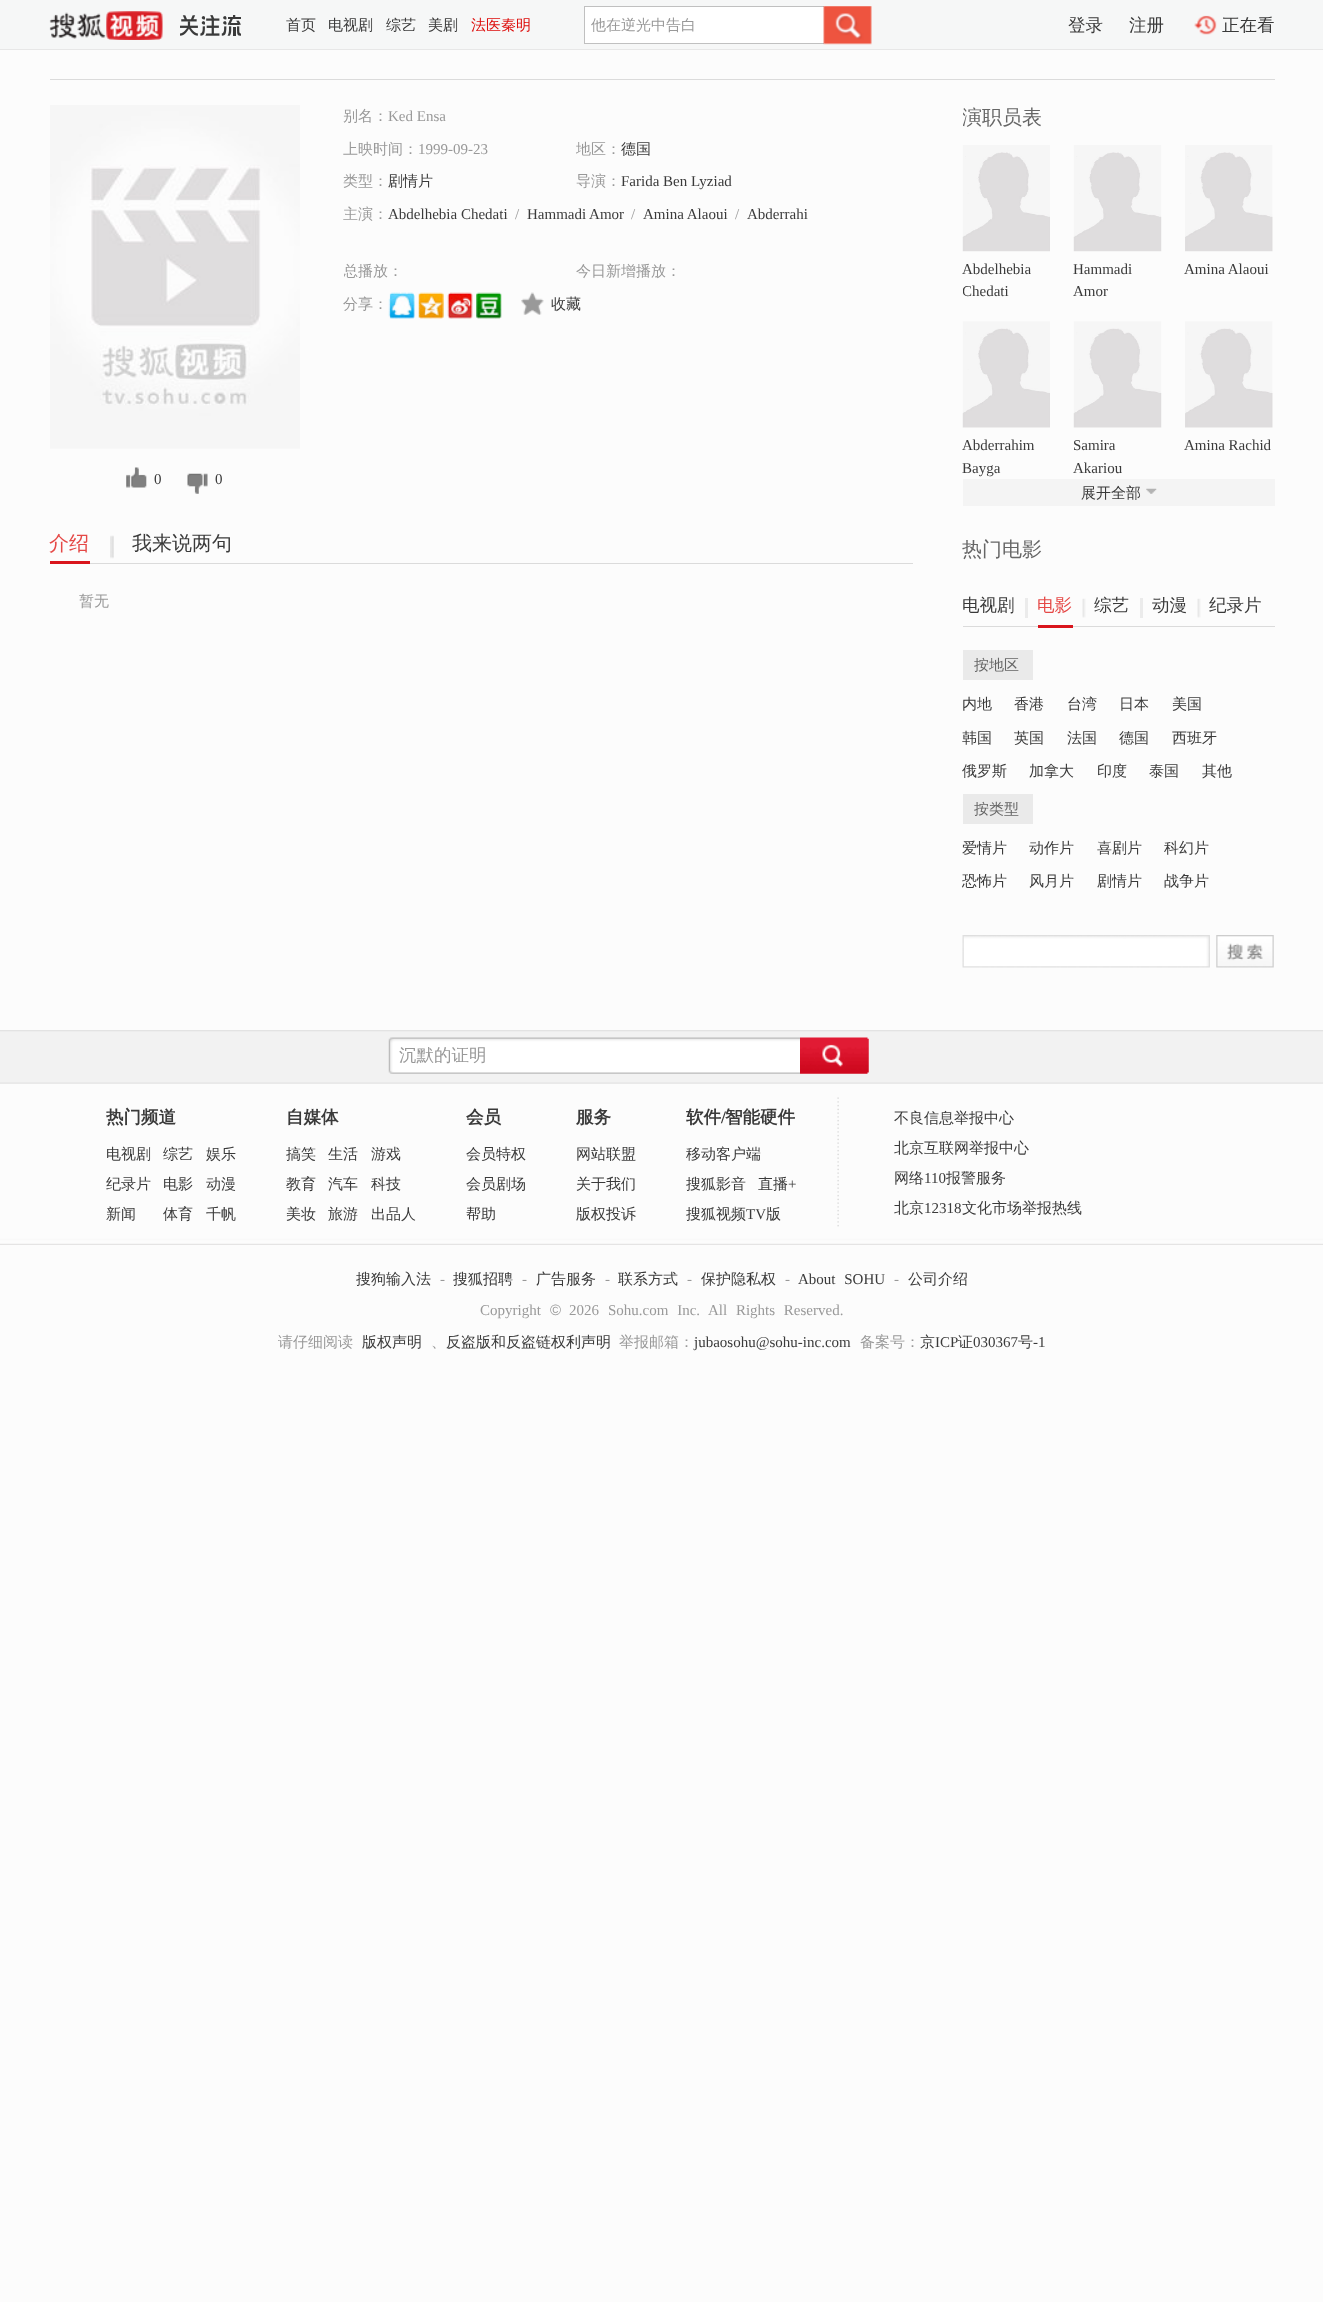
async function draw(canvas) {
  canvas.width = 1323
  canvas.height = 2302
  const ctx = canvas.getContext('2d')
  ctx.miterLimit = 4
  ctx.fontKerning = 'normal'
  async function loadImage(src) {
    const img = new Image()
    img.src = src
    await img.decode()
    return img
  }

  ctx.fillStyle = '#fcfcfc'
  ctx.fillRect(0, 0, 1323, 2302)
  ctx.fillStyle = '#f6f7f7'
  ctx.fillRect(0, 0, 1323, 49)
  ctx.fillStyle = '#e7e7e7'
  ctx.fillRect(0, 49, 1323, 1)
  ctx.drawImage(await loadImage('image0.png'), 49, 11, 114, 29)
  ctx.drawImage(await loadImage('image1.png'), 180, 15, 61, 21)
  ctx.font = '500 15px WenQuanYi Zen Hei'
  ctx.fillStyle = '#3a3a3a'
  ctx.fillText('首页', 286, 30)
  ctx.fillText('电视剧', 328, 30)
  ctx.fillText('综艺', 386, 30)
  ctx.fillText('美剧', 428, 30)
  ctx.fillStyle = '#dd0d0b'
  ctx.fillText('法医秦明', 471, 30)
  ctx.fillStyle = '#fff'
  ctx.fillRect(585, 7, 239, 36)
  ctx.fillStyle = '#c0c0c0'
  ctx.fillRect(584, 6, 240, 1)
  ctx.fillRect(584, 43, 240, 1)
  ctx.fillRect(584, 6, 1, 38)
  ctx.fillStyle = '#999'
  ctx.fillText('他在逆光中告白', 591, 30)
  ctx.drawImage(await loadImage('image2.png'), 823, 6, 49, 39)
  ctx.font = '500 17.5px WenQuanYi Zen Hei'
  ctx.fillStyle = '#3a3a3a'
  ctx.fillText('登录', 1068, 31)
  ctx.fillText('注册', 1129, 31)
  ctx.drawImage(await loadImage('image3.png'), 1194, 15, 23, 20)
  ctx.fillText('正在看', 1222, 31)
  ctx.fillStyle = '#dbdbdb'
  ctx.fillRect(50, 79, 1225, 1)
  ctx.font = '500 15px WenQuanYi Zen Hei'
  ctx.fillStyle = '#999'
  ctx.fillText('别名：', 343, 121)
  ctx.font = '15px Liberation Serif'
  ctx.fillText('Ked Ensa', 388, 121)
  ctx.font = '500 15px WenQuanYi Zen Hei'
  ctx.fillText('上映时间：', 343, 154)
  ctx.font = '15px Liberation Serif'
  ctx.fillText('1999-09-23', 418, 154)
  ctx.font = '500 15px WenQuanYi Zen Hei'
  ctx.fillText('地区：', 576, 154)
  ctx.fillStyle = '#3a3a3a'
  ctx.fillText('德国', 621, 154)
  ctx.fillStyle = '#999'
  ctx.fillText('类型：', 343, 186)
  ctx.fillStyle = '#3a3a3a'
  ctx.fillText('剧情片', 388, 186)
  ctx.fillStyle = '#999'
  ctx.fillText('导演：', 576, 186)
  ctx.font = '15px Liberation Serif'
  ctx.fillStyle = '#3a3a3a'
  ctx.fillText('Farida Ben Lyziad', 621, 186)
  ctx.font = '500 15px WenQuanYi Zen Hei'
  ctx.fillStyle = '#999'
  ctx.fillText('主演：', 343, 219)
  ctx.font = '15px Liberation Serif'
  ctx.fillStyle = '#3a3a3a'
  ctx.fillText('Abdelhebia Chedati', 388, 219)
  ctx.fillStyle = '#999'
  ctx.fillText('/', 515, 219)
  ctx.fillStyle = '#3a3a3a'
  ctx.fillText('Hammadi Amor', 527, 219)
  ctx.fillStyle = '#999'
  ctx.fillText('/', 631, 219)
  ctx.fillStyle = '#3a3a3a'
  ctx.fillText('Amina Alaoui', 643, 219)
  ctx.fillStyle = '#999'
  ctx.fillText('/', 735, 219)
  ctx.fillStyle = '#3a3a3a'
  ctx.fillText('Abderrahi', 747, 219)
  ctx.save()
  ctx.beginPath()
  ctx.rect(344, 260, 232, 23)
  ctx.clip()
  ctx.font = '500 15px WenQuanYi Zen Hei'
  ctx.fillStyle = '#999'
  ctx.fillText('总播放：', 343, 276)
  ctx.restore()
  ctx.font = '500 15px WenQuanYi Zen Hei'
  ctx.fillStyle = '#999'
  ctx.fillText('今日新增播放：', 576, 276)
  ctx.fillText('分享：', 343, 309)
  ctx.drawImage(await loadImage('image4.png'), 388, 292, 27, 27)
  ctx.drawImage(await loadImage('image5.png'), 418, 292, 26, 27)
  ctx.drawImage(await loadImage('image6.png'), 447, 292, 26, 27)
  ctx.drawImage(await loadImage('image7.png'), 476, 292, 26, 27)
  ctx.drawImage(await loadImage('image8.png'), 521, 292, 23, 23)
  ctx.fillStyle = '#3a3a3a'
  ctx.fillText('收藏', 551, 309)
  ctx.drawImage(await loadImage('image9.png'), 50, 105, 250, 344)
  ctx.drawImage(await loadImage('image10.png'), 126, 467, 21, 21)
  ctx.font = '15px Liberation Serif'
  ctx.fillText('0', 154, 484)
  ctx.drawImage(await loadImage('image11.png'), 187, 473, 21, 21)
  ctx.fillText('0', 215, 484)
  ctx.fillStyle = '#dbdbdb'
  ctx.fillRect(90, 563, 823, 1)
  ctx.fillStyle = '#d9151d'
  ctx.fillRect(50, 561, 40, 3)
  ctx.font = '500 20px WenQuanYi Zen Hei'
  ctx.fillStyle = '#e54947'
  ctx.fillText('介绍', 49, 550)
  ctx.drawImage(await loadImage('image12.png'), 110, 535, 4, 24)
  ctx.fillStyle = '#3a3a3a'
  ctx.fillText('我来说两句', 132, 550)
  ctx.font = '500 15px WenQuanYi Zen Hei'
  ctx.fillStyle = '#999'
  ctx.fillText('暂无', 79, 606)
  ctx.save()
  ctx.beginPath()
  ctx.rect(963, 105, 312, 401)
  ctx.clip()
  ctx.font = '500 20px WenQuanYi Zen Hei'
  ctx.fillStyle = '#666'
  ctx.fillText('演职员表', 962, 124)
  ctx.restore()
  ctx.drawImage(await loadImage('image13.png'), 962, 145, 88, 107)
  ctx.font = '15px Liberation Serif'
  ctx.fillStyle = '#3a3a3a'
  ctx.fillText('Abdelhebia', 962, 274)
  ctx.save()
  ctx.beginPath()
  ctx.rect(963, 258, 90, 45)
  ctx.clip()
  ctx.fillText('Chedati', 962, 296)
  ctx.restore()
  ctx.drawImage(await loadImage('image14.png'), 1073, 145, 89, 107)
  ctx.fillText('Hammadi', 1073, 274)
  ctx.fillText('Amor', 1073, 296)
  ctx.drawImage(await loadImage('image15.png'), 1185, 145, 88, 107)
  ctx.fillText('Amina Alaoui', 1184, 274)
  ctx.drawImage(await loadImage('image16.png'), 962, 321, 88, 107)
  ctx.fillText('Abderrahim', 962, 450)
  ctx.fillText('Bayga', 962, 473)
  ctx.drawImage(await loadImage('image17.png'), 1073, 321, 89, 107)
  ctx.fillText('Samira', 1073, 450)
  ctx.fillText('Akariou', 1073, 473)
  ctx.drawImage(await loadImage('image18.png'), 1185, 321, 88, 107)
  ctx.fillText('Amina Rachid', 1184, 450)
  ctx.fillStyle = '#f4f4f4'
  ctx.fillRect(963, 479, 312, 27)
  ctx.font = '500 15px WenQuanYi Zen Hei'
  ctx.fillStyle = '#3a3a3a'
  ctx.fillText('展开全部', 1081, 498)
  ctx.drawImage(await loadImage('image19.png'), 1146, 488, 11, 6)
  ctx.font = '500 20px WenQuanYi Zen Hei'
  ctx.fillStyle = '#666'
  ctx.fillText('热门电影', 962, 556)
  ctx.fillStyle = '#dbdbdb'
  ctx.fillRect(963, 626, 312, 1)
  ctx.font = '500 17.5px WenQuanYi Zen Hei'
  ctx.fillStyle = '#3a3a3a'
  ctx.fillText('电视剧', 962, 611)
  ctx.fillStyle = '#ebebeb'
  ctx.fillRect(1025, 598, 3, 20)
  ctx.fillStyle = '#d9151d'
  ctx.fillRect(1038, 625, 35, 3)
  ctx.fillStyle = '#e54947'
  ctx.fillText('电影', 1037, 611)
  ctx.drawImage(await loadImage('image20.png'), 1082, 598, 4, 20)
  ctx.fillStyle = '#3a3a3a'
  ctx.fillText('综艺', 1094, 611)
  ctx.fillStyle = '#ebebeb'
  ctx.fillRect(1140, 598, 3, 20)
  ctx.fillStyle = '#3a3a3a'
  ctx.fillText('动漫', 1152, 611)
  ctx.drawImage(await loadImage('image20.png'), 1197, 598, 4, 20)
  ctx.fillText('纪录片', 1209, 611)
  ctx.fillStyle = '#eaeaea'
  ctx.fillRect(963, 650, 70, 30)
  ctx.font = '500 15px WenQuanYi Zen Hei'
  ctx.fillStyle = '#666'
  ctx.fillText('按地区', 974, 670)
  ctx.fillStyle = '#3a3a3a'
  ctx.fillText('内地', 962, 709)
  ctx.fillText('香港', 1014, 709)
  ctx.fillText('台湾', 1067, 709)
  ctx.fillText('日本', 1119, 709)
  ctx.fillText('美国', 1172, 709)
  ctx.fillText('韩国', 962, 743)
  ctx.fillText('英国', 1014, 743)
  ctx.fillText('法国', 1067, 743)
  ctx.fillText('德国', 1119, 743)
  ctx.fillText('西班牙', 1172, 743)
  ctx.fillText('俄罗斯', 962, 776)
  ctx.fillText('加拿大', 1029, 776)
  ctx.fillText('印度', 1097, 776)
  ctx.fillText('泰国', 1149, 776)
  ctx.fillText('其他', 1202, 776)
  ctx.fillStyle = '#eaeaea'
  ctx.fillRect(963, 794, 70, 30)
  ctx.fillStyle = '#666'
  ctx.fillText('按类型', 974, 814)
  ctx.fillStyle = '#3a3a3a'
  ctx.fillText('爱情片', 962, 853)
  ctx.fillText('动作片', 1029, 853)
  ctx.fillText('喜剧片', 1097, 853)
  ctx.fillText('科幻片', 1164, 853)
  ctx.fillText('恐怖片', 962, 886)
  ctx.fillText('风月片', 1029, 886)
  ctx.fillText('剧情片', 1097, 886)
  ctx.fillText('战争片', 1164, 886)
  ctx.drawImage(await loadImage('image21.png'), 962, 935, 248, 33)
  ctx.drawImage(await loadImage('image22.png'), 1216, 935, 58, 33)
  ctx.drawImage(await loadImage('image23.png'), 0, 1030, 1323, 215)
  ctx.drawImage(await loadImage('image24.png'), 388, 1037, 412, 37)
  ctx.font = '500 17.5px WenQuanYi Zen Hei'
  ctx.fillStyle = '#999'
  ctx.fillText('沉默的证明', 399, 1061)
  ctx.drawImage(await loadImage('image25.png'), 800, 1037, 69, 37)
  ctx.font = 'bold 17.5px WenQuanYi Zen Hei'
  ctx.fillStyle = '#3a3a3a'
  ctx.fillText('热门频道', 106, 1123)
  ctx.font = '500 15px WenQuanYi Zen Hei'
  ctx.fillText('电视剧', 106, 1159)
  ctx.fillText('纪录片', 106, 1189)
  ctx.fillText('新闻', 106, 1219)
  ctx.fillText('综艺', 163, 1159)
  ctx.fillText('电影', 163, 1189)
  ctx.fillText('体育', 163, 1219)
  ctx.fillText('娱乐', 206, 1159)
  ctx.fillText('动漫', 206, 1189)
  ctx.fillText('千帆', 206, 1219)
  ctx.font = 'bold 17.5px WenQuanYi Zen Hei'
  ctx.fillText('自媒体', 286, 1123)
  ctx.font = '500 15px WenQuanYi Zen Hei'
  ctx.fillText('搞笑', 286, 1159)
  ctx.fillText('教育', 286, 1189)
  ctx.fillText('美妆', 286, 1219)
  ctx.fillText('生活', 328, 1159)
  ctx.fillText('汽车', 328, 1189)
  ctx.fillText('旅游', 328, 1219)
  ctx.fillText('游戏', 371, 1159)
  ctx.fillText('科技', 371, 1189)
  ctx.fillText('出品人', 371, 1219)
  ctx.font = 'bold 17.5px WenQuanYi Zen Hei'
  ctx.fillText('会员', 466, 1123)
  ctx.font = '500 15px WenQuanYi Zen Hei'
  ctx.fillText('会员特权', 466, 1159)
  ctx.fillText('会员剧场', 466, 1189)
  ctx.fillText('帮助', 466, 1219)
  ctx.font = 'bold 17.5px WenQuanYi Zen Hei'
  ctx.fillText('服务', 576, 1123)
  ctx.font = '500 15px WenQuanYi Zen Hei'
  ctx.fillText('网站联盟', 576, 1159)
  ctx.fillText('关于我们', 576, 1189)
  ctx.fillText('版权投诉', 576, 1219)
  ctx.font = 'bold 17.5px WenQuanYi Zen Hei'
  ctx.fillText('软件', 686, 1123)
  ctx.font = 'bold 17.5px Liberation Serif'
  ctx.fillText('/', 721, 1123)
  ctx.font = 'bold 17.5px WenQuanYi Zen Hei'
  ctx.fillText('智能硬件', 725, 1123)
  ctx.font = '500 15px WenQuanYi Zen Hei'
  ctx.fillText('移动客户端', 686, 1159)
  ctx.fillText('搜狐影音', 686, 1189)
  ctx.fillText('直播', 758, 1189)
  ctx.font = '15px Liberation Serif'
  ctx.fillText('+', 788, 1189)
  ctx.font = '500 15px WenQuanYi Zen Hei'
  ctx.fillText('搜狐视频', 686, 1219)
  ctx.font = '15px Liberation Serif'
  ctx.fillText('TV', 746, 1219)
  ctx.font = '500 15px WenQuanYi Zen Hei'
  ctx.fillText('版', 766, 1219)
  ctx.drawImage(await loadImage('image26.png'), 837, 1097, 2, 130)
  ctx.fillText('不良信息举报中心', 894, 1123)
  ctx.fillText('北京互联网举报中心', 894, 1153)
  ctx.fillText('网络', 894, 1183)
  ctx.font = '15px Liberation Serif'
  ctx.fillText('110', 924, 1183)
  ctx.font = '500 15px WenQuanYi Zen Hei'
  ctx.fillText('报警服务', 946, 1183)
  ctx.fillText('北京', 894, 1213)
  ctx.font = '15px Liberation Serif'
  ctx.fillText('12318', 924, 1213)
  ctx.font = '500 15px WenQuanYi Zen Hei'
  ctx.fillText('文化市场举报热线', 962, 1213)
  ctx.fillText('搜狗输入法', 356, 1284)
  ctx.font = '15px Liberation Serif'
  ctx.fillStyle = '#999'
  ctx.fillText('-', 440, 1284)
  ctx.font = '500 15px WenQuanYi Zen Hei'
  ctx.fillStyle = '#3a3a3a'
  ctx.fillText('搜狐招聘', 453, 1284)
  ctx.font = '15px Liberation Serif'
  ctx.fillStyle = '#999'
  ctx.fillText('-', 522, 1284)
  ctx.font = '500 15px WenQuanYi Zen Hei'
  ctx.fillStyle = '#3a3a3a'
  ctx.fillText('广告服务', 536, 1284)
  ctx.font = '15px Liberation Serif'
  ctx.fillStyle = '#999'
  ctx.fillText('-', 605, 1284)
  ctx.font = '500 15px WenQuanYi Zen Hei'
  ctx.fillStyle = '#3a3a3a'
  ctx.fillText('联系方式', 618, 1284)
  ctx.font = '15px Liberation Serif'
  ctx.fillStyle = '#999'
  ctx.fillText('-', 687, 1284)
  ctx.font = '500 15px WenQuanYi Zen Hei'
  ctx.fillStyle = '#3a3a3a'
  ctx.fillText('保护隐私权', 701, 1284)
  ctx.font = '15px Liberation Serif'
  ctx.fillStyle = '#999'
  ctx.fillText('-', 785, 1284)
  ctx.wordSpacing = '5px'
  ctx.fillStyle = '#3a3a3a'
  ctx.fillText('About SOHU', 798, 1284)
  ctx.wordSpacing = '0px'
  ctx.fillStyle = '#999'
  ctx.fillText('-', 894, 1284)
  ctx.font = '500 15px WenQuanYi Zen Hei'
  ctx.fillStyle = '#3a3a3a'
  ctx.fillText('公司介绍', 908, 1284)
  ctx.font = '15px Liberation Serif'
  ctx.fillStyle = '#999'
  ctx.fillText('Copyright', 480, 1315)
  ctx.font = '15px Liberation Sans'
  ctx.fillText('©', 550, 1315)
  ctx.font = '15px Liberation Serif'
  ctx.fillText('2026', 569, 1315)
  ctx.wordSpacing = '5px'
  ctx.fillText('Sohu.com Inc. All Rights Reserved.', 608, 1315)
  ctx.wordSpacing = '0px'
  ctx.font = '500 15px WenQuanYi Zen Hei'
  ctx.fillText('请仔细阅读', 278, 1347)
  ctx.fillStyle = '#3a3a3a'
  ctx.fillText('版权声明', 362, 1347)
  ctx.fillStyle = '#999'
  ctx.fillText('、', 431, 1347)
  ctx.fillStyle = '#3a3a3a'
  ctx.fillText('反盗版和反盗链权利声明', 446, 1347)
  ctx.fillStyle = '#999'
  ctx.fillText('举报邮箱：', 619, 1347)
  ctx.font = '15px Liberation Serif'
  ctx.fillStyle = '#3a3a3a'
  ctx.fillText('jubaosohu@sohu-inc.com', 694, 1347)
  ctx.font = '500 15px WenQuanYi Zen Hei'
  ctx.fillStyle = '#999'
  ctx.fillText('备案号：', 860, 1347)
  ctx.fillStyle = '#3a3a3a'
  ctx.fillText('京', 920, 1347)
  ctx.font = '15px Liberation Serif'
  ctx.fillText('ICP', 935, 1347)
  ctx.font = '500 15px WenQuanYi Zen Hei'
  ctx.fillText('证', 958, 1347)
  ctx.font = '15px Liberation Serif'
  ctx.fillText('030367', 973, 1347)
  ctx.font = '500 15px WenQuanYi Zen Hei'
  ctx.fillText('号', 1018, 1347)
  ctx.font = '15px Liberation Serif'
  ctx.fillText('-1', 1033, 1347)
}

draw(document.querySelector('canvas'))
